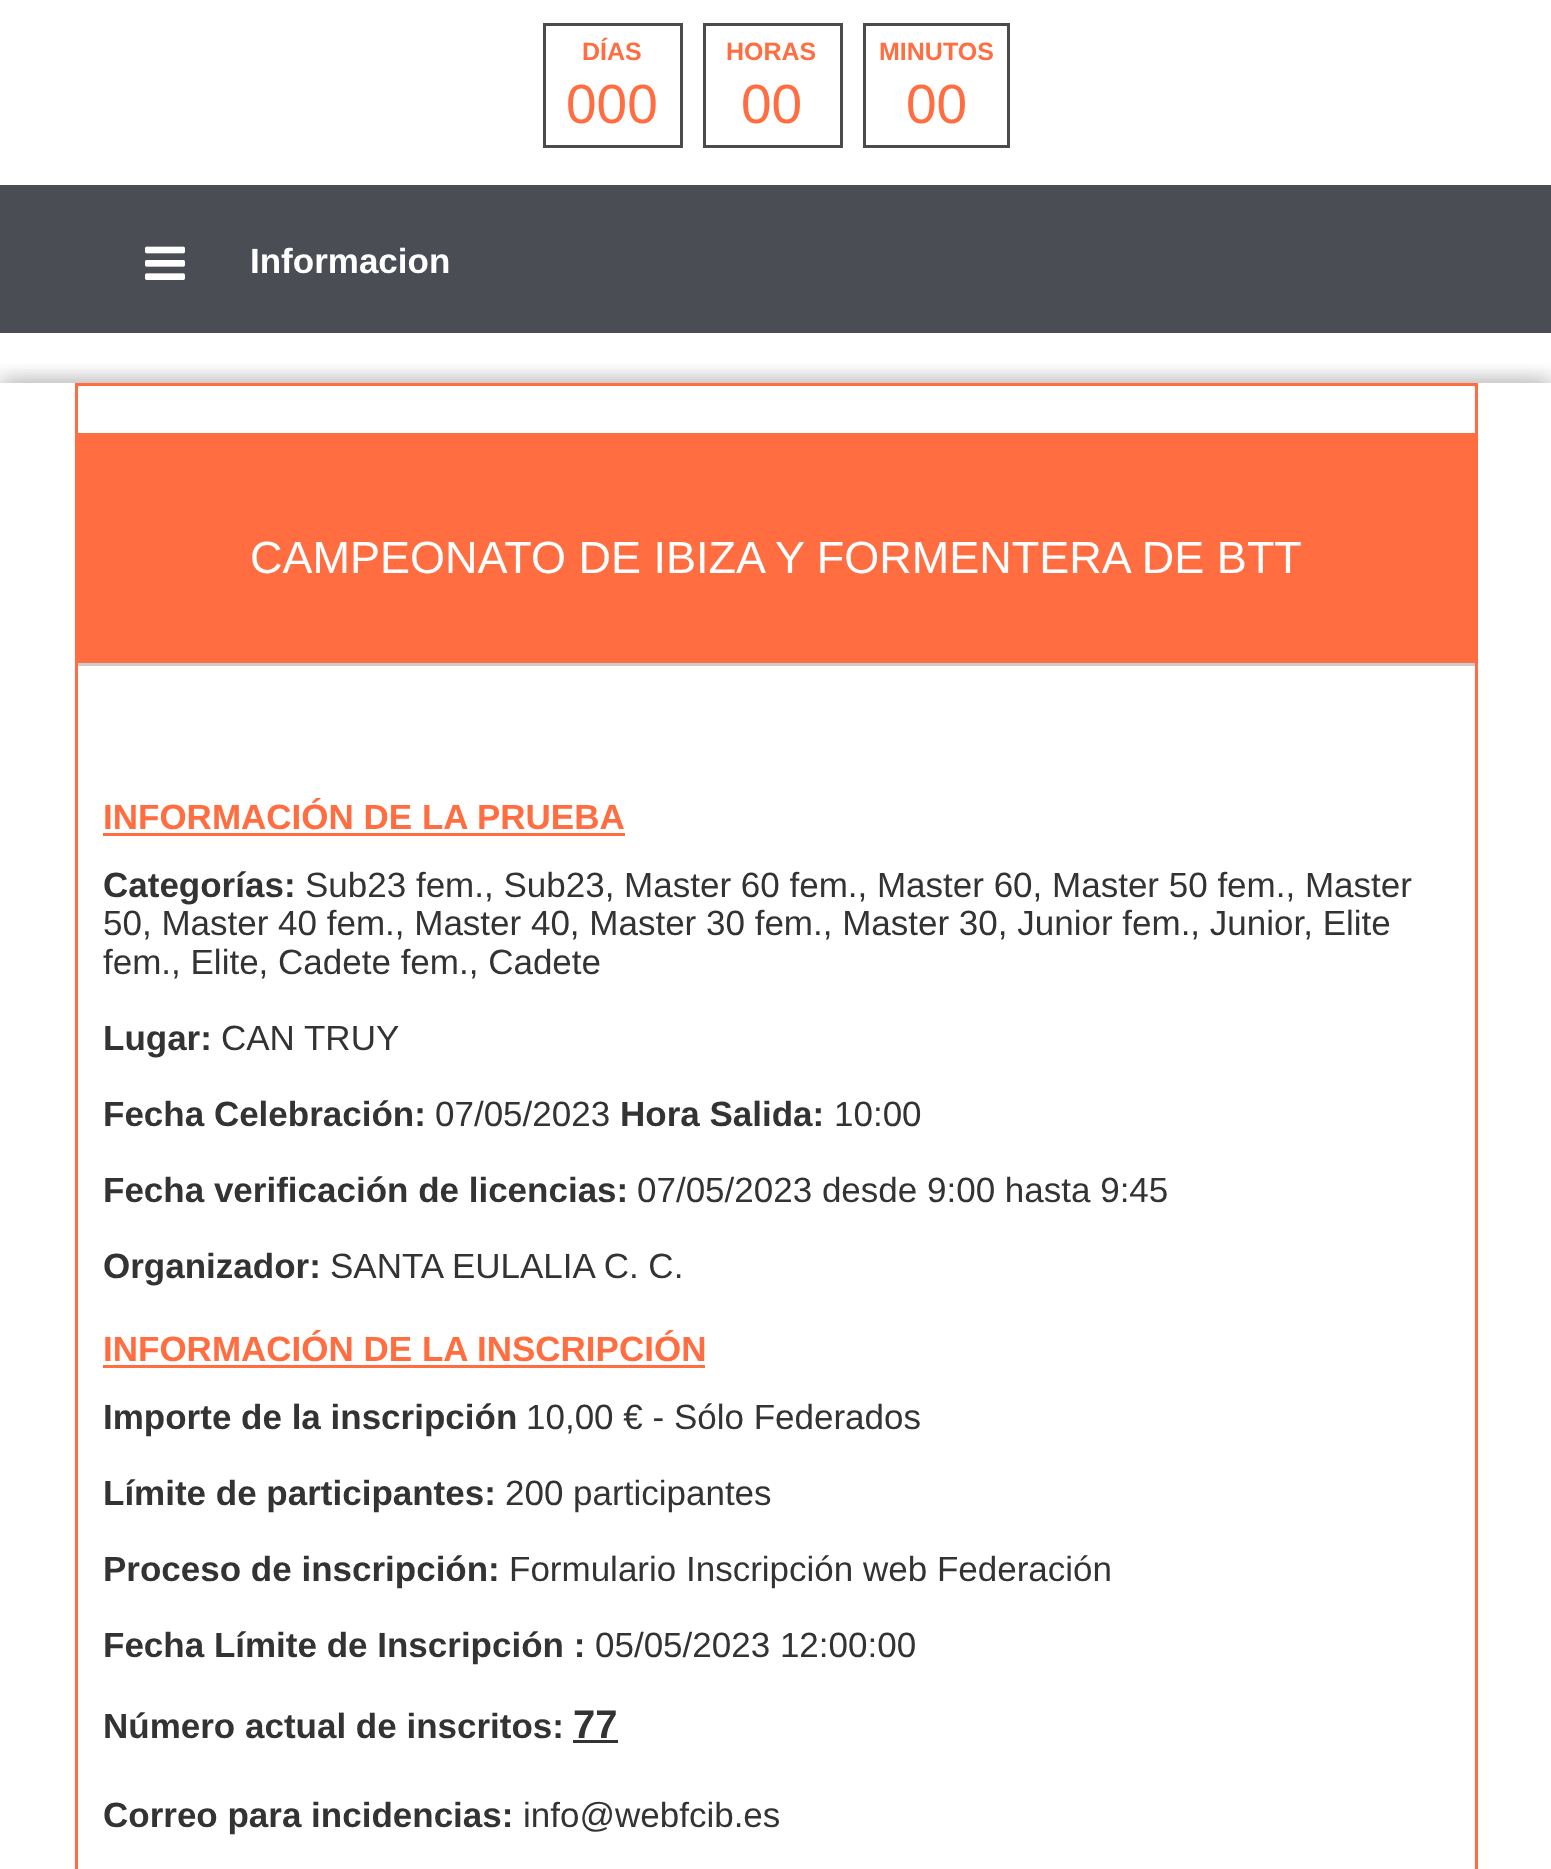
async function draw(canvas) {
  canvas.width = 1551
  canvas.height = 1869
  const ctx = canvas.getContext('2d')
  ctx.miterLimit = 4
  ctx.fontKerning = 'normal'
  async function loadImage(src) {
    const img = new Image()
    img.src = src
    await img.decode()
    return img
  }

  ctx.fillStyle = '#fff'
  ctx.fillRect(0, 0, 1551, 1869)
  ctx.strokeStyle = '#4b4b4b'
  ctx.lineWidth = 3
  ctx.strokeRect(544.5, 24.5, 137, 122)
  ctx.font = 'bold 25px Liberation Sans'
  ctx.fillStyle = '#ff6d40'
  ctx.fillText('DÍAS', 582, 60)
  ctx.font = '55px Liberation Sans'
  ctx.fillText('000', 566, 123)
  ctx.strokeRect(704.5, 24.5, 137, 122)
  ctx.font = 'bold 25px Liberation Sans'
  ctx.fillText('HORAS', 726, 60)
  ctx.font = '55px Liberation Sans'
  ctx.fillText('00', 741, 123)
  ctx.strokeRect(864.5, 24.5, 144, 122)
  ctx.font = 'bold 25px Liberation Sans'
  ctx.fillText('MINUTOS', 879, 60)
  ctx.font = '55px Liberation Sans'
  ctx.fillText('00', 906, 123)
  ctx.fillStyle = '#4a4d53'
  ctx.fillRect(0, 185, 1551, 148)
  ctx.drawImage(await loadImage('image0.png'), 145, 246, 40, 34)
  ctx.font = 'bold 35px Liberation Sans'
  ctx.fillStyle = '#fff'
  ctx.fillText('Informacion', 250, 273)
  ctx.save()
  ctx.beginPath()
  ctx.rect(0, 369, 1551, 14)
  ctx.clip()
  ctx.fillStyle = '#00000033'
  ctx.filter = 'blur(12.5px)'
  ctx.beginPath()
  ctx.rect(3, 385, 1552, 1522)
  ctx.fill()
  ctx.filter = 'none'
  ctx.restore()
  ctx.save()
  ctx.beginPath()
  ctx.rect(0, 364, 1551, 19)
  ctx.clip()
  ctx.fillStyle = '#00000033'
  ctx.filter = 'blur(12.5px)'
  ctx.beginPath()
  ctx.rect(-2, 380, 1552, 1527)
  ctx.fill()
  ctx.filter = 'none'
  ctx.restore()
  ctx.fillStyle = '#ff6d40'
  ctx.fillRect(78, 433, 1397, 230)
  ctx.fillStyle = '#ccc'
  ctx.fillRect(75, 663, 1403, 3)
  ctx.font = '45px Liberation Sans'
  ctx.fillStyle = '#fff'
  ctx.fillText('CAMPEONATO DE IBIZA Y FORMENTERA DE BTT', 250, 573)
  ctx.strokeStyle = '#ff6d40'
  ctx.strokeRect(76.5, 384.5, 1400, 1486)
  ctx.font = 'bold 35px Liberation Sans'
  ctx.fillStyle = '#ff6d40'
  ctx.fillText('INFORMACIÓN DE LA PRUEBA', 103, 829)
  ctx.fillRect(103, 833, 522, 3)
  ctx.fillStyle = '#333'
  ctx.fillText('Categorías:', 103, 897)
  ctx.font = '35px Liberation Sans'
  ctx.fillText('Sub23 fem., Sub23, Master 60 fem., Master 60, Master 50 fem., Master', 305, 897)
  ctx.fillText('50, Master 40 fem., Master 40, Master 30 fem., Master 30, Junior fem., Junior, Elite', 103, 935)
  ctx.fillText('fem., Elite, Cadete fem., Cadete', 103, 974)
  ctx.font = 'bold 35px Liberation Sans'
  ctx.fillText('Lugar:', 103, 1050)
  ctx.font = '35px Liberation Sans'
  ctx.fillText('CAN TRUY', 221, 1050)
  ctx.font = 'bold 35px Liberation Sans'
  ctx.fillText('Fecha Celebración:', 103, 1126)
  ctx.font = '35px Liberation Sans'
  ctx.fillText('07/05/2023', 435, 1126)
  ctx.font = 'bold 35px Liberation Sans'
  ctx.fillText('Hora Salida:', 620, 1126)
  ctx.font = '35px Liberation Sans'
  ctx.fillText('10:00', 834, 1126)
  ctx.font = 'bold 35px Liberation Sans'
  ctx.fillText('Fecha verificación de licencias:', 103, 1202)
  ctx.font = '35px Liberation Sans'
  ctx.fillText('07/05/2023 desde 9:00 hasta 9:45', 637, 1202)
  ctx.font = 'bold 35px Liberation Sans'
  ctx.fillText('Organizador:', 103, 1278)
  ctx.font = '35px Liberation Sans'
  ctx.fillText('SANTA EULALIA C. C.', 330, 1278)
  ctx.font = 'bold 35px Liberation Sans'
  ctx.fillStyle = '#ff6d40'
  ctx.fillText('INFORMACIÓN DE LA INSCRIPCIÓN', 103, 1361)
  ctx.fillRect(103, 1365, 602, 3)
  ctx.fillStyle = '#333'
  ctx.fillText('Importe de la inscripción', 103, 1429)
  ctx.font = '35px Liberation Sans'
  ctx.fillText('10,00 € - Sólo Federados', 526, 1429)
  ctx.font = 'bold 35px Liberation Sans'
  ctx.fillText('Límite de participantes:', 103, 1505)
  ctx.font = '35px Liberation Sans'
  ctx.fillText('200 participantes', 505, 1505)
  ctx.font = 'bold 35px Liberation Sans'
  ctx.fillText('Proceso de inscripción:', 103, 1581)
  ctx.font = '35px Liberation Sans'
  ctx.fillText('Formulario Inscripción web Federación', 509, 1581)
  ctx.font = 'bold 35px Liberation Sans'
  ctx.fillText('Fecha Límite de Inscripción :', 103, 1657)
  ctx.font = '35px Liberation Sans'
  ctx.fillText('05/05/2023 12:00:00', 595, 1657)
  ctx.font = 'bold 35px Liberation Sans'
  ctx.fillText('Número actual de inscritos:', 103, 1738)
  ctx.font = 'bold 40px Liberation Sans'
  ctx.fillText('77', 573, 1738)
  ctx.fillRect(573, 1740, 45, 3)
  ctx.font = 'bold 35px Liberation Sans'
  ctx.fillText('Correo para incidencias:', 103, 1827)
  ctx.font = '35px Liberation Sans'
  ctx.fillText('info@webfcib.es', 523, 1827)
}

draw(document.querySelector('canvas'))
